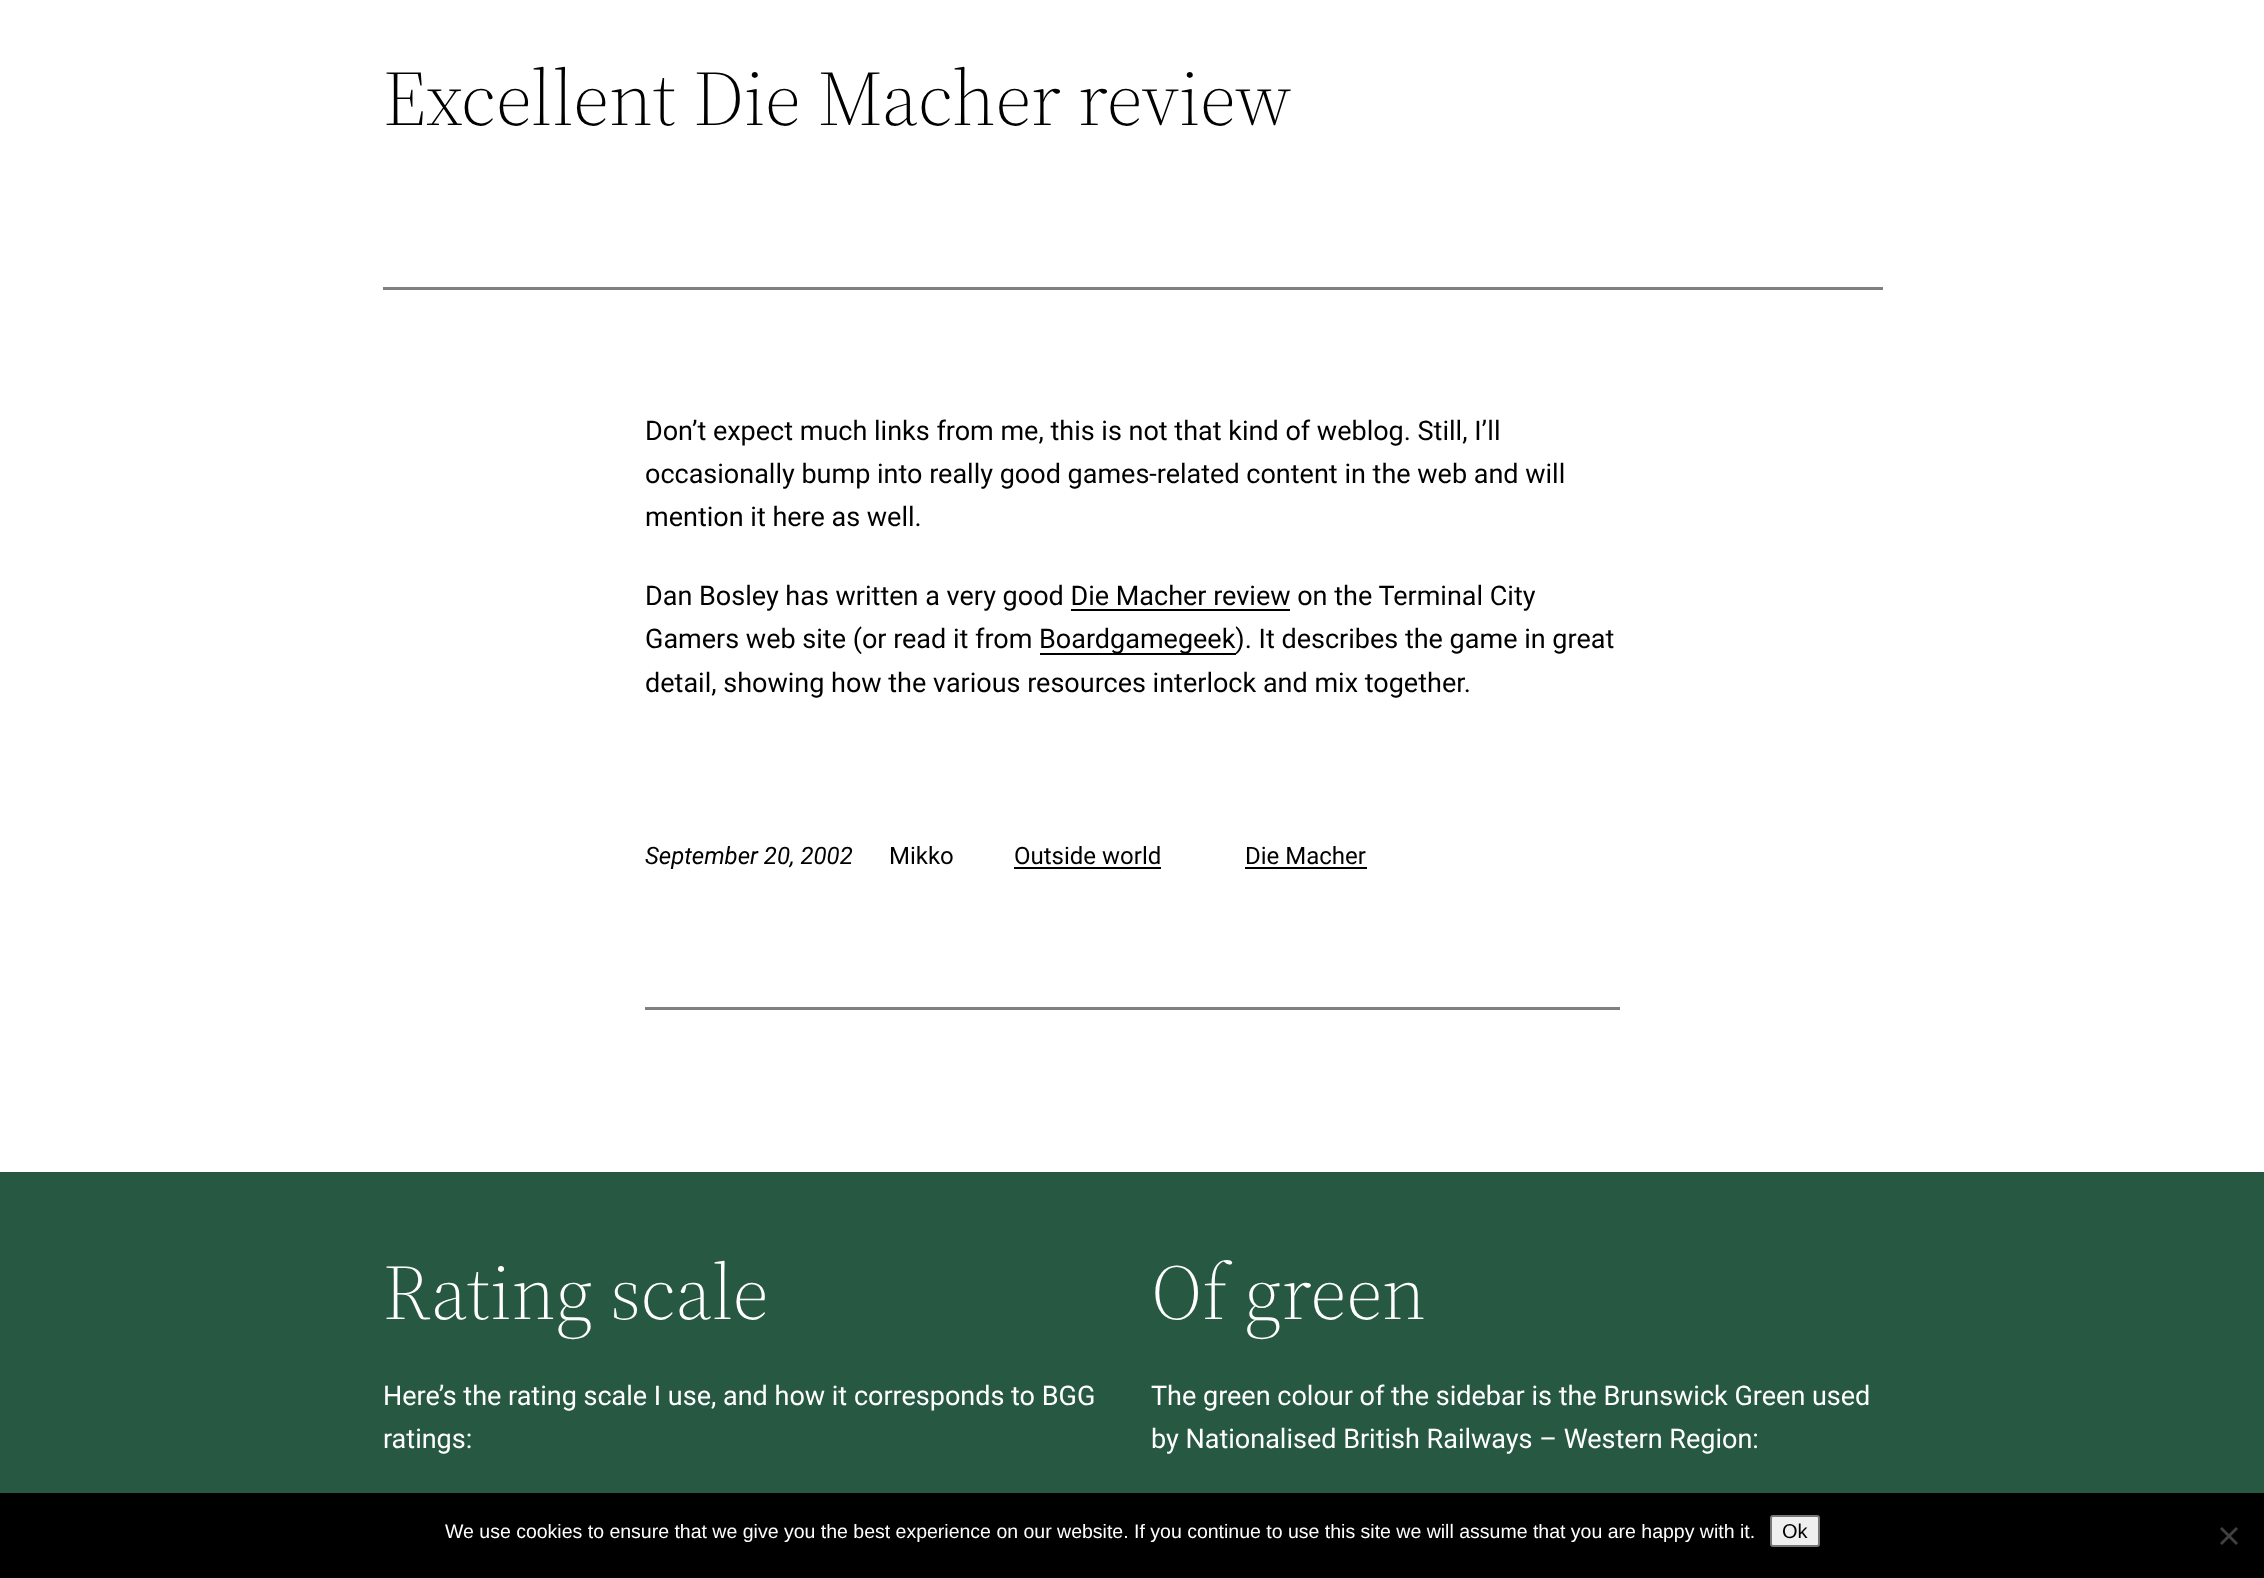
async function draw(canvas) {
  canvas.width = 2264
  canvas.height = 1578
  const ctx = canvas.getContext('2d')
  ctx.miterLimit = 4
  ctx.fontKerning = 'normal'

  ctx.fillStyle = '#fff'
  ctx.fillRect(0, 0, 2264, 1578)
  ctx.font = '300 78px "Source Serif 4"'
  ctx.fillStyle = '#000'
  ctx.fillText('Excellent Die Macher review', 383, 125)
  ctx.fillStyle = '#808080'
  ctx.fillRect(383, 287, 1500, 3)
  ctx.font = '27px Roboto'
  ctx.fillStyle = '#000'
  ctx.fillText('Don’t expect much links from me, this is not that kind of weblog. Still, I’ll', 645, 440)
  ctx.fillText('occasionally bump into really good games-related content in the web and will', 645, 483)
  ctx.fillText('mention it here as well.', 645, 526)
  ctx.fillText('Dan Bosley has written a very good Die Macher review on the Terminal City', 645, 605)
  ctx.fillRect(1071, 609, 219, 2)
  ctx.fillText('Gamers web site (or read it from', 645, 648)
  ctx.fillRect(1040, 653, 196, 2)
  ctx.fillText('Boardgamegeek). It describes the game in great', 1039, 648)
  ctx.fillText('detail, showing how the various resources interlock and mix together.', 645, 692)
  ctx.font = 'italic 24px Roboto'
  ctx.fillText('September 20, 2002', 645, 864)
  ctx.font = '24px Roboto'
  ctx.fillText('Mikko', 889, 864)
  ctx.fillText('Outside world', 1014, 864)
  ctx.fillRect(1014, 867, 147, 2)
  ctx.fillText('Die Macher', 1245, 864)
  ctx.fillRect(1245, 867, 122, 2)
  ctx.fillStyle = '#808080'
  ctx.fillRect(645, 1007, 975, 3)
  ctx.fillStyle = '#265842'
  ctx.fillRect(0, 1172, 2264, 321)
  ctx.font = '300 78px "Source Serif 4"'
  ctx.fillStyle = '#fff'
  ctx.fillText('Rating scale', 383, 1319)
  ctx.font = '27px Roboto'
  ctx.fillText('Here’s the rating scale I use, and how it corresponds to BGG', 383, 1405)
  ctx.fillText('ratings:', 383, 1448)
  ctx.font = '300 78px "Source Serif 4"'
  ctx.fillText('Of green', 1151, 1319)
  ctx.font = '27px Roboto'
  ctx.fillText('The green colour of the sidebar is the Brunswick Green used', 1151, 1405)
  ctx.fillText('by Nationalised British Railways – Western Region:', 1151, 1448)
  ctx.fillStyle = '#000'
  ctx.fillRect(0, 1493, 2264, 85)
  ctx.font = '19.5px Liberation Sans'
  ctx.fillStyle = '#fff'
  ctx.fillText('We use cookies to ensure that we give you the best experience on our website. If you continue to use this site we will assume that you are happy with it.', 445, 1538)
  ctx.fillStyle = '#efefef'
  ctx.beginPath()
  ctx.roundRect(1771, 1516, 48, 30, 2)
  ctx.fill()
  ctx.strokeStyle = '#767676'
  ctx.lineWidth = 2
  ctx.stroke()
  ctx.font = '20px Liberation Sans'
  ctx.fillStyle = '#000'
  ctx.fillText('Ok', 1782, 1538)
  ctx.fillStyle = '#404040'
  ctx.beginPath()
  ctx.moveTo(2236, 1527)
  ctx.lineTo(2238, 1529)
  ctx.lineTo(2222, 1545)
  ctx.lineTo(2220, 1543)
  ctx.closePath()
  ctx.fill()
  ctx.beginPath()
  ctx.moveTo(2220, 1529)
  ctx.lineTo(2222, 1527)
  ctx.lineTo(2238, 1543)
  ctx.lineTo(2236, 1545)
  ctx.closePath()
  ctx.fill()
}

draw(document.querySelector('canvas'))
